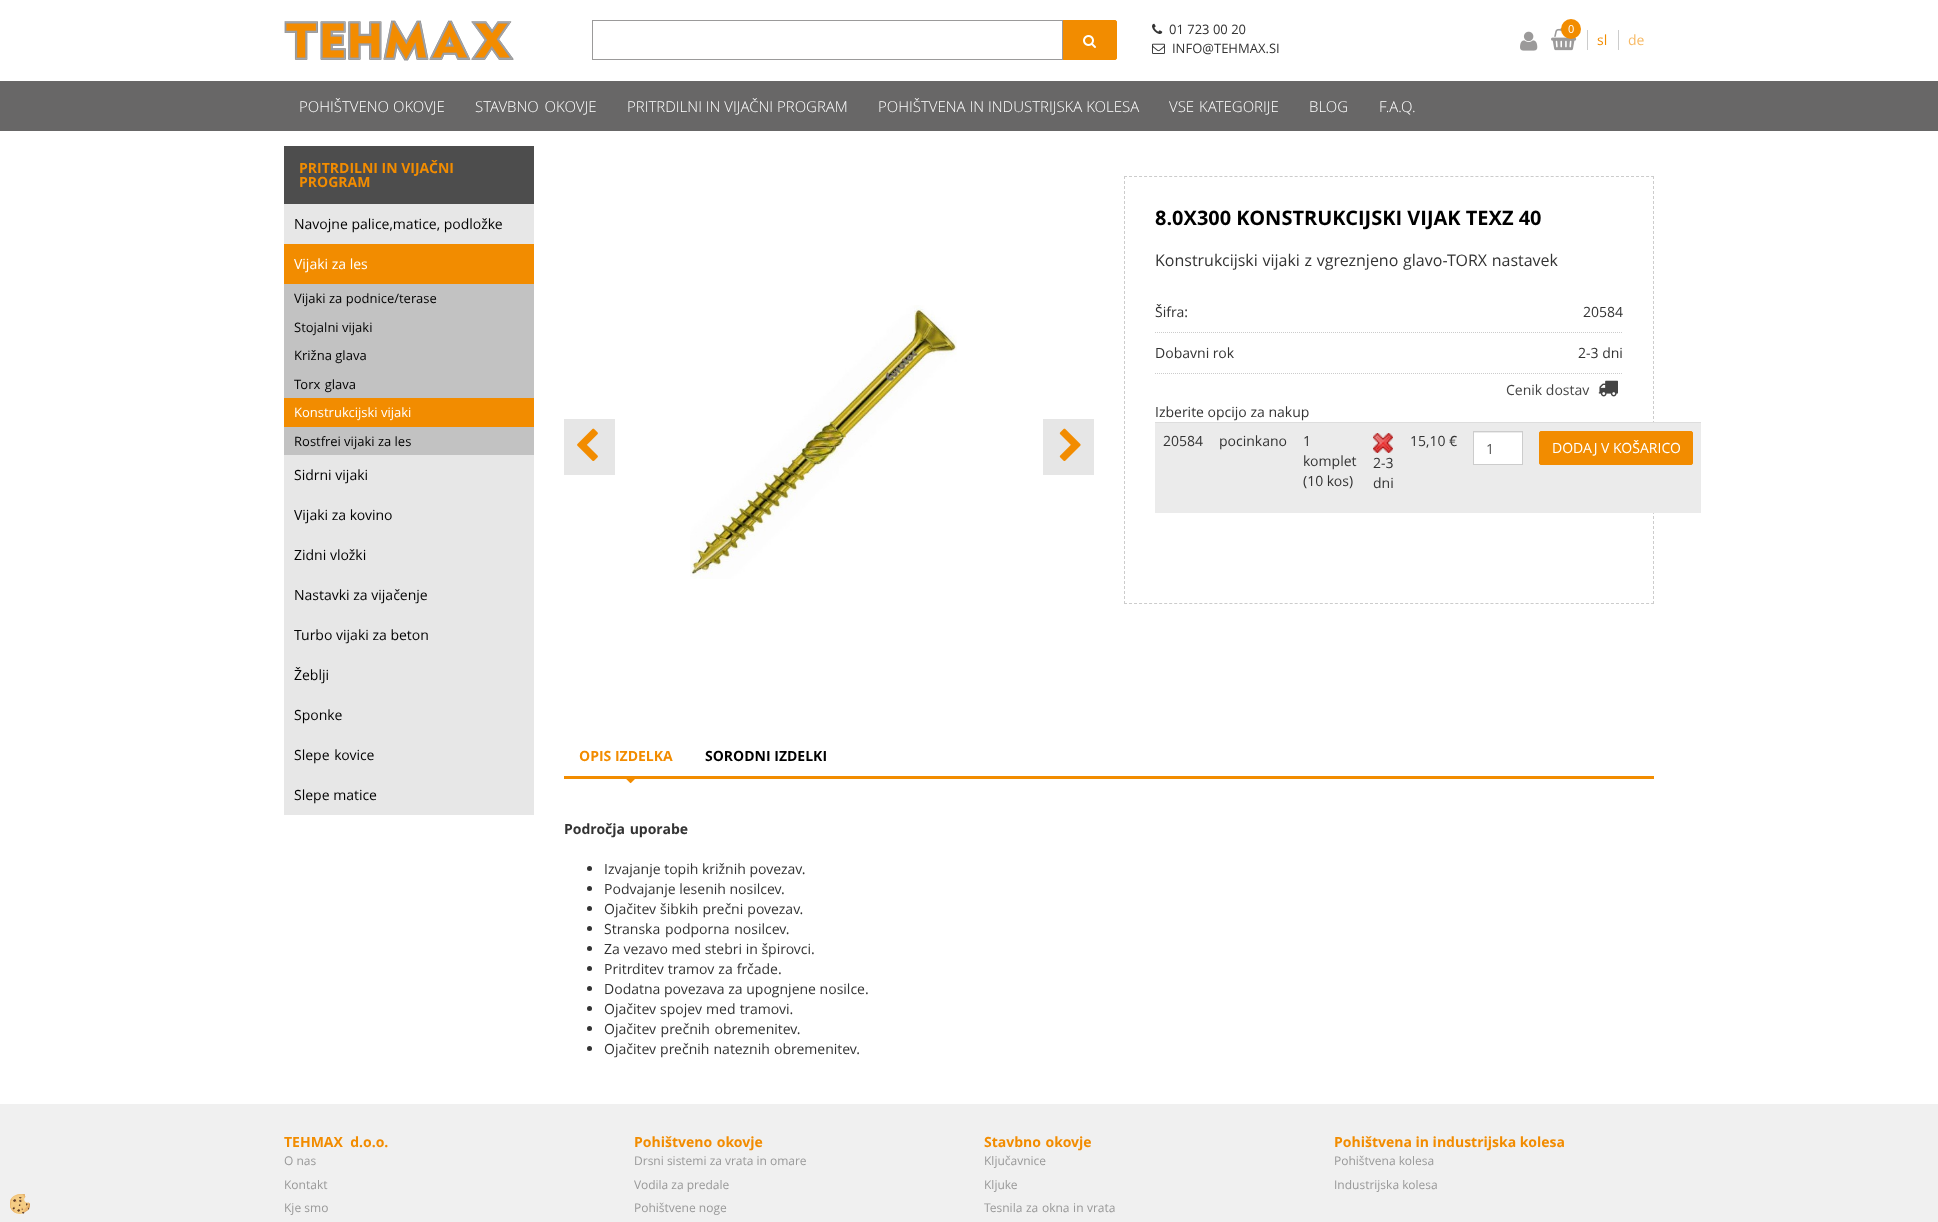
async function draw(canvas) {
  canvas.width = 1938
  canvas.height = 1222
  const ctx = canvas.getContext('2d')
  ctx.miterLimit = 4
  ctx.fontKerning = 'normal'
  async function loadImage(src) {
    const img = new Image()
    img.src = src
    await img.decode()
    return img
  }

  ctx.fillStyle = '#fff'
  ctx.fillRect(0, 0, 1938, 1222)
  ctx.fillStyle = '#f0f0f0'
  ctx.fillRect(0, 1104, 1938, 118)
  ctx.drawImage(await loadImage('image0.png'), 10, 1194, 20, 20)
  ctx.drawImage(await loadImage('image1.png'), 284, 20, 230, 41)
  ctx.fillStyle = '#f28c00'
  ctx.beginPath()
  ctx.roundRect(1062.5, 20.5, 54, 39, [0, 1.5, 1.5, 0])
  ctx.fill()
  ctx.strokeStyle = '#f28c00'
  ctx.stroke()
  ctx.strokeStyle = '#9b9a9a'
  ctx.strokeRect(592.5, 20.5, 470, 39)
  ctx.drawImage(await loadImage('image2.png'), 1083, 35, 13, 13)
  ctx.drawImage(await loadImage('image3.png'), 1152, 23, 11, 11)
  ctx.font = '13px Open Sans'
  ctx.fillStyle = '#333'
  ctx.fillText('01 723 00 20', 1169, 34)
  ctx.drawImage(await loadImage('image4.png'), 1152, 43, 13, 11)
  ctx.fillText('INFO@TEHMAX.SI', 1172, 53)
  ctx.drawImage(await loadImage('image5.png'), 1520, 31, 18, 20)
  ctx.drawImage(await loadImage('image6.png'), 1551, 28, 26, 23)
  ctx.fillStyle = '#f28c00'
  ctx.beginPath()
  ctx.arc(1571, 29, 10, 0, 2 * Math.PI)
  ctx.fill()
  ctx.font = '11px Open Sans'
  ctx.fillStyle = '#fff'
  ctx.fillText('0', 1568, 33)
  ctx.fillStyle = '#ccc'
  ctx.fillRect(1587, 30, 1, 20)
  ctx.font = '14px Open Sans'
  ctx.fillStyle = '#f28c00'
  ctx.fillText('sl', 1597, 45)
  ctx.fillStyle = '#ccc'
  ctx.fillRect(1618, 30, 1, 20)
  ctx.fillStyle = '#f7ba66'
  ctx.fillText('de', 1628, 45)
  ctx.fillStyle = '#686767'
  ctx.fillRect(0, 81, 1938, 50)
  ctx.font = '300 15px Open Sans'
  ctx.fillStyle = '#fff'
  ctx.fillText('POHIŠTVENO OKOVJE', 299, 112)
  ctx.wordSpacing = '2px'
  ctx.fillText('STAVBNO OKOVJE', 475, 112)
  ctx.wordSpacing = '0px'
  ctx.fillText('PRITRDILNI IN VIJAČNI PROGRAM', 627, 112)
  ctx.fillText('POHIŠTVENA IN INDUSTRIJSKA KOLESA', 878, 112)
  ctx.wordSpacing = '1px'
  ctx.fillText('VSE KATEGORIJE', 1169, 112)
  ctx.wordSpacing = '0px'
  ctx.fillText('BLOG', 1309, 112)
  ctx.fillText('F.A.Q.', 1379, 112)
  ctx.fillStyle = '#4d4d4d'
  ctx.fillRect(284, 146, 250, 58)
  ctx.font = 'bold 14px Open Sans'
  ctx.fillStyle = '#f28c00'
  ctx.fillText('PRITRDILNI IN VIJAČNI', 299, 173)
  ctx.fillText('PROGRAM', 299, 187)
  ctx.fillStyle = '#e7e7e7'
  ctx.fillRect(284, 204, 250, 40)
  ctx.font = '14px Open Sans'
  ctx.fillStyle = '#000'
  ctx.fillText('Navojne palice,matice, podložke', 294, 229)
  ctx.fillStyle = '#f28c00'
  ctx.fillRect(284, 244, 250, 40)
  ctx.fillStyle = '#fff'
  ctx.fillText('Vijaki za les', 294, 269)
  ctx.fillStyle = '#c2c2c2'
  ctx.fillRect(284, 284, 250, 114)
  ctx.font = '13px Open Sans'
  ctx.fillStyle = '#000'
  ctx.fillText('Vijaki za podnice/terase', 294, 303)
  ctx.fillText('Stojalni vijaki', 294, 332)
  ctx.fillText('Križna glava', 294, 360)
  ctx.wordSpacing = '1px'
  ctx.fillText('Torx glava', 294, 389)
  ctx.fillStyle = '#f28c00'
  ctx.fillRect(284, 398, 250, 29)
  ctx.wordSpacing = '0px'
  ctx.fillStyle = '#fff'
  ctx.fillText('Konstrukcijski vijaki', 294, 417)
  ctx.fillStyle = '#c2c2c2'
  ctx.fillRect(284, 427, 250, 28)
  ctx.fillStyle = '#000'
  ctx.fillText('Rostfrei vijaki za les', 294, 446)
  ctx.fillStyle = '#e7e7e7'
  ctx.fillRect(284, 455, 250, 360)
  ctx.font = '14px Open Sans'
  ctx.fillStyle = '#000'
  ctx.fillText('Sidrni vijaki', 294, 480)
  ctx.fillText('Vijaki za kovino', 294, 520)
  ctx.fillText('Zidni vložki', 294, 560)
  ctx.fillText('Nastavki za vijačenje', 294, 600)
  ctx.fillText('Turbo vijaki za beton', 294, 640)
  ctx.fillText('Žeblji', 294, 680)
  ctx.fillText('Sponke', 294, 720)
  ctx.wordSpacing = '1px'
  ctx.fillText('Slepe kovice', 294, 760)
  ctx.wordSpacing = '0px'
  ctx.fillText('Slepe matice', 294, 800)
  ctx.fillStyle = '#e6e6e6'
  ctx.fillRect(564, 419, 51, 56)
  ctx.drawImage(await loadImage('image7.png'), 577, 428, 21, 33)
  ctx.drawImage(await loadImage('image8.png'), 690, 305, 267, 274)
  ctx.fillRect(1043, 419, 51, 56)
  ctx.drawImage(await loadImage('image9.png'), 1059, 428, 22, 33)
  ctx.beginPath()
  ctx.moveTo(1124, 176.5)
  ctx.lineTo(1654, 176.5)
  ctx.strokeStyle = '#ccc'
  ctx.setLineDash([3, 2.02])
  ctx.stroke()
  ctx.beginPath()
  ctx.moveTo(1653.5, 176)
  ctx.lineTo(1653.5, 604)
  ctx.setLineDash([3, 2])
  ctx.stroke()
  ctx.beginPath()
  ctx.moveTo(1124, 603.5)
  ctx.lineTo(1654, 603.5)
  ctx.setLineDash([3, 2.02])
  ctx.stroke()
  ctx.beginPath()
  ctx.moveTo(1124.5, 176)
  ctx.lineTo(1124.5, 604)
  ctx.setLineDash([3, 2])
  ctx.stroke()
  ctx.font = 'bold 20px Open Sans'
  ctx.fillStyle = '#000'
  ctx.fillText('8.0X300 KONSTRUKCIJSKI VIJAK TEXZ 40', 1155, 225)
  ctx.wordSpacing = '0.5px'
  ctx.font = '16px Open Sans'
  ctx.fillStyle = '#333'
  ctx.fillText('Konstrukcijski vijaki z vgreznjeno glavo-TORX nastavek', 1155, 266)
  ctx.beginPath()
  ctx.moveTo(1155, 332.5)
  ctx.lineTo(1623, 332.5)
  ctx.setLineDash([1, 1])
  ctx.stroke()
  ctx.wordSpacing = '0px'
  ctx.font = '14px Open Sans'
  ctx.fillText('Šifra:', 1155, 317)
  ctx.fillText('20584', 1583, 317)
  ctx.beginPath()
  ctx.moveTo(1155, 373.5)
  ctx.lineTo(1623, 373.5)
  ctx.stroke()
  ctx.fillText('Dobavni rok', 1155, 358)
  ctx.fillText('2-3 dni', 1578, 358)
  ctx.fillStyle = '#444'
  ctx.fillText('Cenik dostav', 1506, 395)
  ctx.drawImage(await loadImage('image10.png'), 1598, 380, 20, 17)
  ctx.fillStyle = '#333'
  ctx.fillText('Izberite opcijo za nakup', 1155, 417)
  ctx.fillStyle = '#ebebeb'
  ctx.fillRect(1155, 423, 546, 90)
  ctx.fillStyle = '#333'
  ctx.fillText('20584', 1163, 446)
  ctx.fillText('pocinkano', 1219, 446)
  ctx.fillText('1', 1303, 446)
  ctx.fillText('komplet', 1303, 466)
  ctx.fillText('(10 kos)', 1303, 486)
  ctx.fillText('15,10 €', 1410, 446)
  ctx.fillStyle = '#fff'
  ctx.fillRect(1474, 433, 48, 31)
  ctx.setLineDash([])
  ctx.strokeRect(1473.5, 431.5, 49, 33)
  ctx.fillStyle = '#555'
  ctx.fillText('1', 1486, 454)
  ctx.fillStyle = '#ddd'
  ctx.fillRect(1155, 422, 546, 1)
  ctx.fillStyle = '#f28c00'
  ctx.beginPath()
  ctx.roundRect(1539.5, 431.5, 153, 33, 1.5)
  ctx.fill()
  ctx.strokeStyle = '#f28c00'
  ctx.stroke()
  ctx.fillStyle = '#fff'
  ctx.fillText('DODAJ V KOŠARICO', 1552, 453)
  ctx.drawImage(await loadImage('image11.png'), 1373, 433, 20, 20)
  ctx.fillStyle = '#333'
  ctx.fillText('2-3', 1373, 468)
  ctx.fillText('dni', 1373, 488)
  ctx.fillStyle = '#f28c00'
  ctx.fillRect(564, 776, 1090, 3)
  ctx.font = 'bold 14px Open Sans'
  ctx.fillText('OPIS IZDELKA', 579, 761)
  ctx.drawImage(await loadImage('image12.png'), 626, 779, 9, 5)
  ctx.fillStyle = '#000'
  ctx.fillText('SORODNI IZDELKI', 705, 761)
  ctx.wordSpacing = '1px'
  ctx.fillStyle = '#333'
  ctx.fillText('Področja uporabe', 564, 834)
  ctx.beginPath()
  ctx.arc(589.5, 868.5, 2.5, 0, 2 * Math.PI)
  ctx.fill()
  ctx.wordSpacing = '0px'
  ctx.font = '14px Open Sans'
  ctx.fillText('Izvajanje topih križnih povezav.', 604, 874)
  ctx.beginPath()
  ctx.arc(589.5, 888.5, 2.5, 0, 2 * Math.PI)
  ctx.fill()
  ctx.fillText('Podvajanje lesenih nosilcev.', 604, 894)
  ctx.beginPath()
  ctx.arc(589.5, 908.5, 2.5, 0, 2 * Math.PI)
  ctx.fill()
  ctx.wordSpacing = '0.5px'
  ctx.fillText('Ojačitev šibkih prečni povezav.', 604, 914)
  ctx.beginPath()
  ctx.arc(589.5, 928.5, 2.5, 0, 2 * Math.PI)
  ctx.fill()
  ctx.wordSpacing = '1px'
  ctx.fillText('Stranska podporna nosilcev.', 604, 934)
  ctx.beginPath()
  ctx.arc(589.5, 948.5, 2.5, 0, 2 * Math.PI)
  ctx.fill()
  ctx.wordSpacing = '0px'
  ctx.fillText('Za vezavo med stebri in špirovci.', 604, 954)
  ctx.beginPath()
  ctx.arc(589.5, 968.5, 2.5, 0, 2 * Math.PI)
  ctx.fill()
  ctx.wordSpacing = '0.5px'
  ctx.fillText('Pritrditev tramov za frčade.', 604, 974)
  ctx.beginPath()
  ctx.arc(589.5, 988.5, 2.5, 0, 2 * Math.PI)
  ctx.fill()
  ctx.wordSpacing = '0px'
  ctx.fillText('Dodatna povezava za upognjene nosilce.', 604, 994)
  ctx.beginPath()
  ctx.arc(589.5, 1008.5, 2.5, 0, 2 * Math.PI)
  ctx.fill()
  ctx.wordSpacing = '0.5px'
  ctx.fillText('Ojačitev spojev med tramovi.', 604, 1014)
  ctx.beginPath()
  ctx.arc(589.5, 1028.5, 2.5, 0, 2 * Math.PI)
  ctx.fill()
  ctx.wordSpacing = '1px'
  ctx.fillText('Ojačitev prečnih obremenitev.', 604, 1034)
  ctx.beginPath()
  ctx.arc(589.5, 1048.5, 2.5, 0, 2 * Math.PI)
  ctx.fill()
  ctx.wordSpacing = '0.5px'
  ctx.fillText('Ojačitev prečnih nateznih obremenitev.', 604, 1054)
  ctx.wordSpacing = '0px'
  ctx.font = 'bold 14px Open Sans'
  ctx.fillStyle = '#f28c00'
  ctx.fillText('TEHMAX  d.o.o.', 284, 1147)
  ctx.font = '12px Open Sans'
  ctx.fillStyle = '#999'
  ctx.fillText('O nas', 284, 1165)
  ctx.fillText('Kontakt', 284, 1189)
  ctx.fillText('Kje smo', 284, 1212)
  ctx.wordSpacing = '1px'
  ctx.font = 'bold 14px Open Sans'
  ctx.fillStyle = '#f28c00'
  ctx.fillText('Pohištveno okovje', 634, 1147)
  ctx.wordSpacing = '0px'
  ctx.font = '12px Open Sans'
  ctx.fillStyle = '#999'
  ctx.fillText('Drsni sistemi za vrata in omare', 634, 1165)
  ctx.fillText('Vodila za predale', 634, 1189)
  ctx.fillText('Pohištvene noge', 634, 1212)
  ctx.wordSpacing = '1px'
  ctx.font = 'bold 14px Open Sans'
  ctx.fillStyle = '#f28c00'
  ctx.fillText('Stavbno okovje', 984, 1147)
  ctx.wordSpacing = '0px'
  ctx.font = '12px Open Sans'
  ctx.fillStyle = '#999'
  ctx.fillText('Ključavnice', 984, 1165)
  ctx.fillText('Kljuke', 984, 1189)
  ctx.wordSpacing = '0.5px'
  ctx.fillText('Tesnila za okna in vrata', 984, 1212)
  ctx.wordSpacing = '0px'
  ctx.font = 'bold 14px Open Sans'
  ctx.fillStyle = '#f28c00'
  ctx.fillText('Pohištvena in industrijska kolesa', 1334, 1147)
  ctx.font = '12px Open Sans'
  ctx.fillStyle = '#999'
  ctx.fillText('Pohištvena kolesa', 1334, 1165)
  ctx.fillText('Industrijska kolesa', 1334, 1189)
}

draw(document.querySelector('canvas'))
